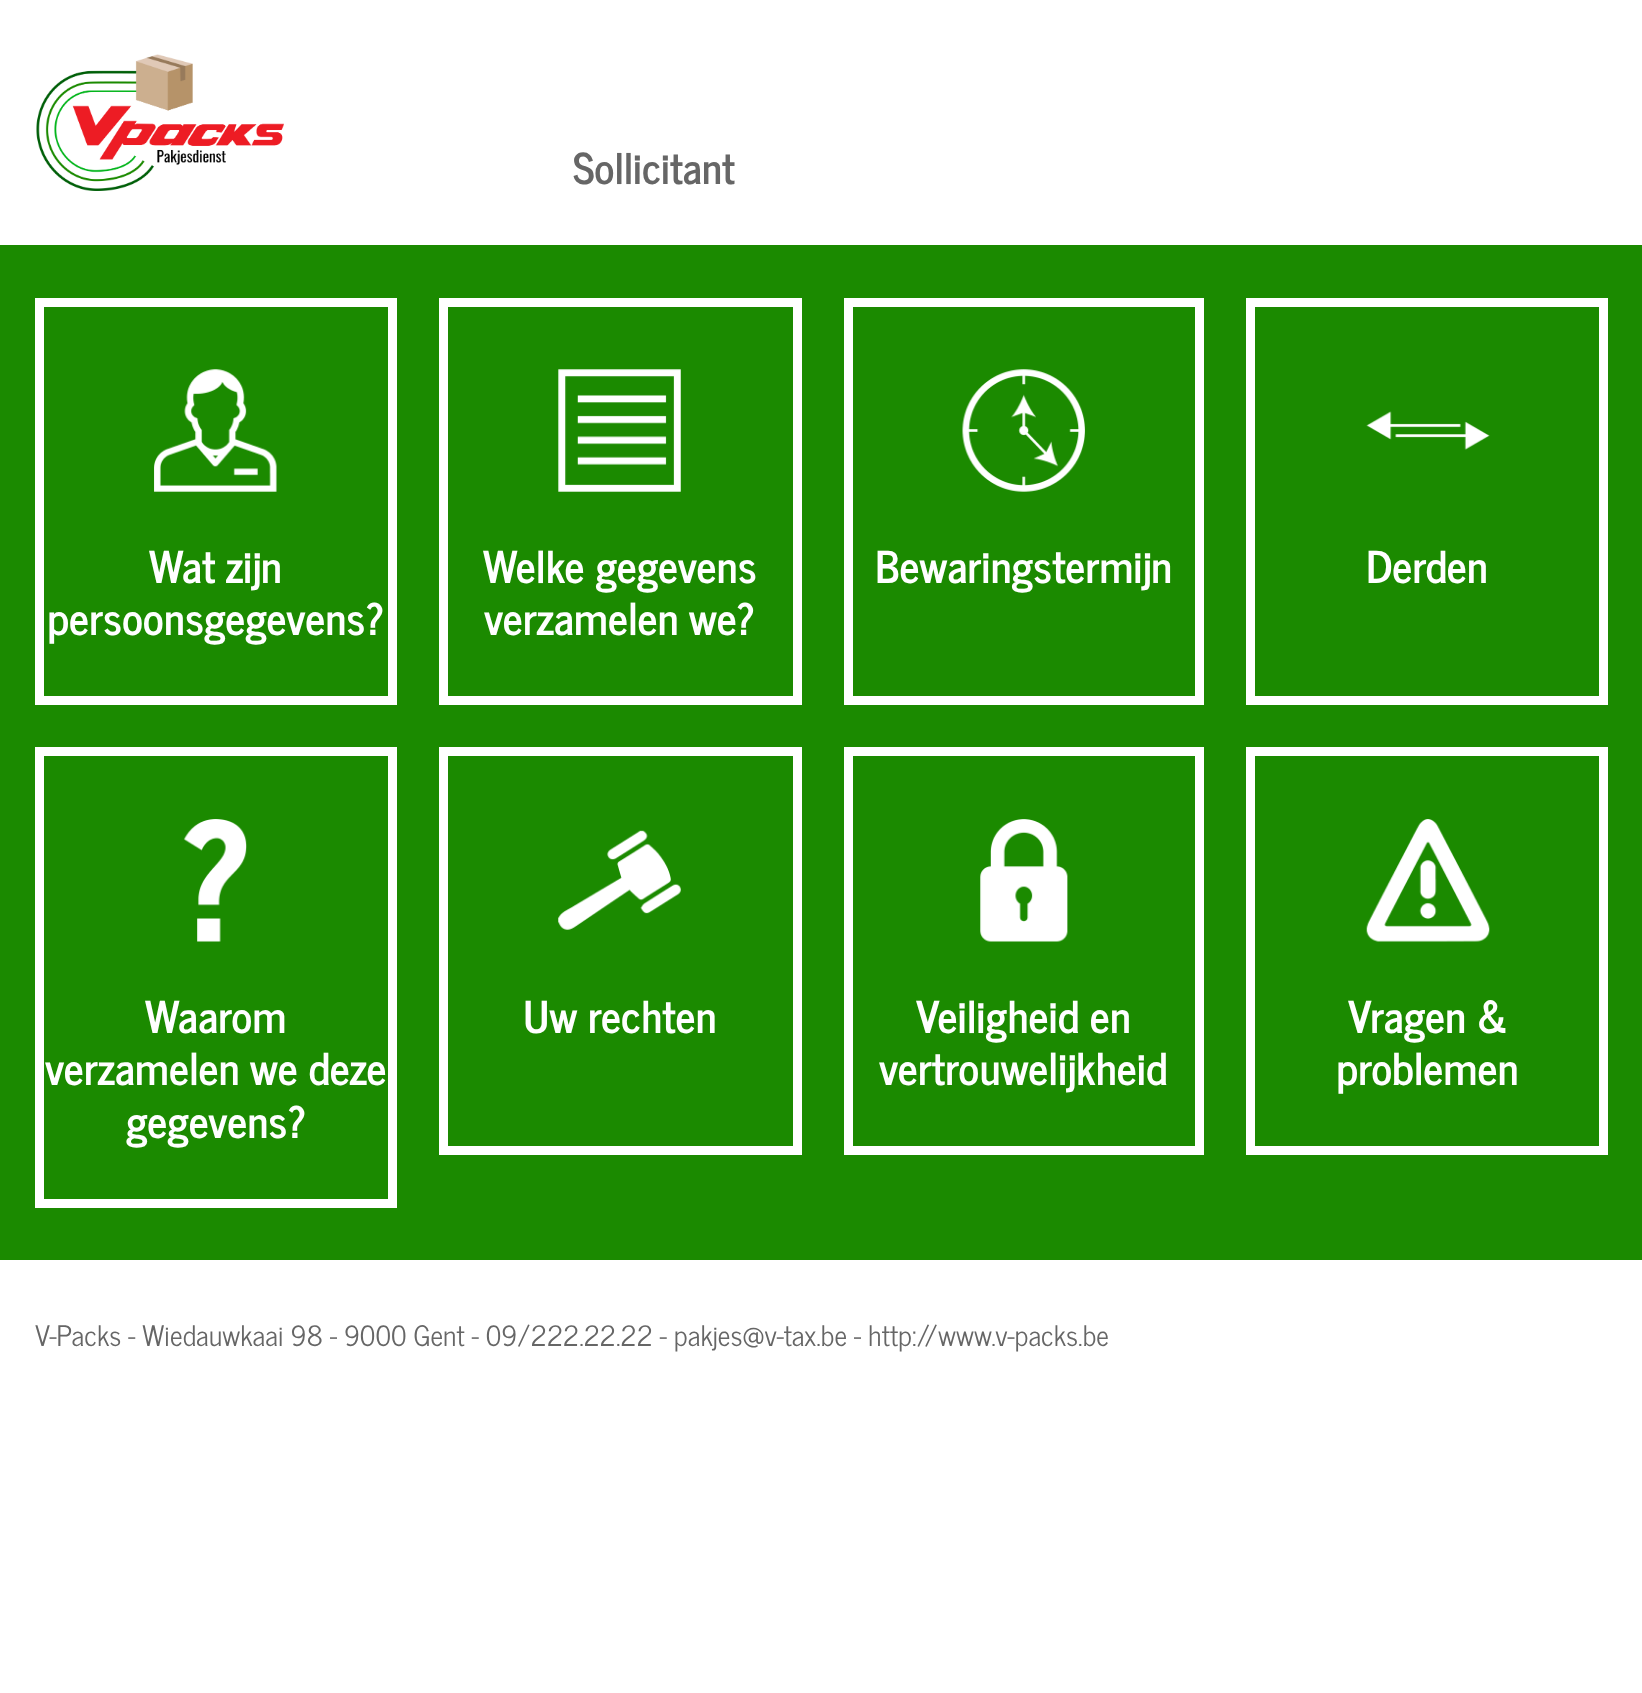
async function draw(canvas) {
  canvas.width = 1642
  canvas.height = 1693
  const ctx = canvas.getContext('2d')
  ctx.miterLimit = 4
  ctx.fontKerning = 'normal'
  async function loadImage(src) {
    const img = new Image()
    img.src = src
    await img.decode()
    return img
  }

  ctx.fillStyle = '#fff'
  ctx.fillRect(0, 0, 1642, 1693)
  ctx.drawImage(await loadImage('image0.png'), 36, 54, 248, 137)
  ctx.font = 'bold 42px News Cycle'
  ctx.fillStyle = '#666'
  ctx.fillText('Sollicitant', 573, 184)
  ctx.fillStyle = '#1b8a00'
  ctx.fillRect(0, 245, 1642, 1015)
  ctx.strokeStyle = '#fff'
  ctx.lineWidth = 9
  ctx.strokeRect(39.5, 302.5, 353, 398)
  ctx.drawImage(await loadImage('image1.png'), 154, 369, 123, 123)
  ctx.font = 'bold 43.75px News Cycle'
  ctx.fillStyle = '#fff'
  ctx.fillText('Wat zijn', 149, 583)
  ctx.fillText('persoonsgegevens?', 47, 635)
  ctx.strokeRect(443.5, 302.5, 354, 398)
  ctx.drawImage(await loadImage('image2.png'), 558, 369, 123, 123)
  ctx.fillText('Welke gegevens', 483, 583)
  ctx.fillText('verzamelen we?', 484, 635)
  ctx.strokeRect(848.5, 302.5, 351, 398)
  ctx.drawImage(await loadImage('image3.png'), 962, 369, 123, 123)
  ctx.fillText('Bewaringstermijn', 875, 583)
  ctx.strokeRect(1250.5, 302.5, 353, 398)
  ctx.drawImage(await loadImage('image4.png'), 1366, 411, 124, 39)
  ctx.fillText('Derden', 1366, 583)
  ctx.strokeRect(39.5, 751.5, 353, 452)
  ctx.drawImage(await loadImage('image5.png'), 183, 819, 64, 123)
  ctx.fillText('Waarom', 145, 1033)
  ctx.fillText('verzamelen we deze', 45, 1085)
  ctx.fillText('gegevens?', 126, 1138)
  ctx.strokeRect(443.5, 751.5, 354, 399)
  ctx.drawImage(await loadImage('image6.png'), 558, 830, 123, 100)
  ctx.fillText('Uw rechten', 523, 1033)
  ctx.strokeRect(848.5, 751.5, 351, 399)
  ctx.drawImage(await loadImage('image7.png'), 980, 819, 88, 123)
  ctx.fillText('Veiligheid en', 916, 1033)
  ctx.fillText('vertrouwelijkheid', 879, 1085)
  ctx.strokeRect(1250.5, 751.5, 353, 399)
  ctx.drawImage(await loadImage('image8.png'), 1366, 819, 124, 123)
  ctx.fillText('Vragen &', 1348, 1033)
  ctx.fillText('problemen', 1336, 1085)
  ctx.font = '28px News Cycle'
  ctx.fillStyle = '#666'
  ctx.fillText('V-Packs - Wiedauwkaai 98 - 9000 Gent - 09/222.22.22 - pakjes@v-tax.be - http://www.v-packs.be', 35, 1346)
}

draw(document.querySelector('canvas'))
